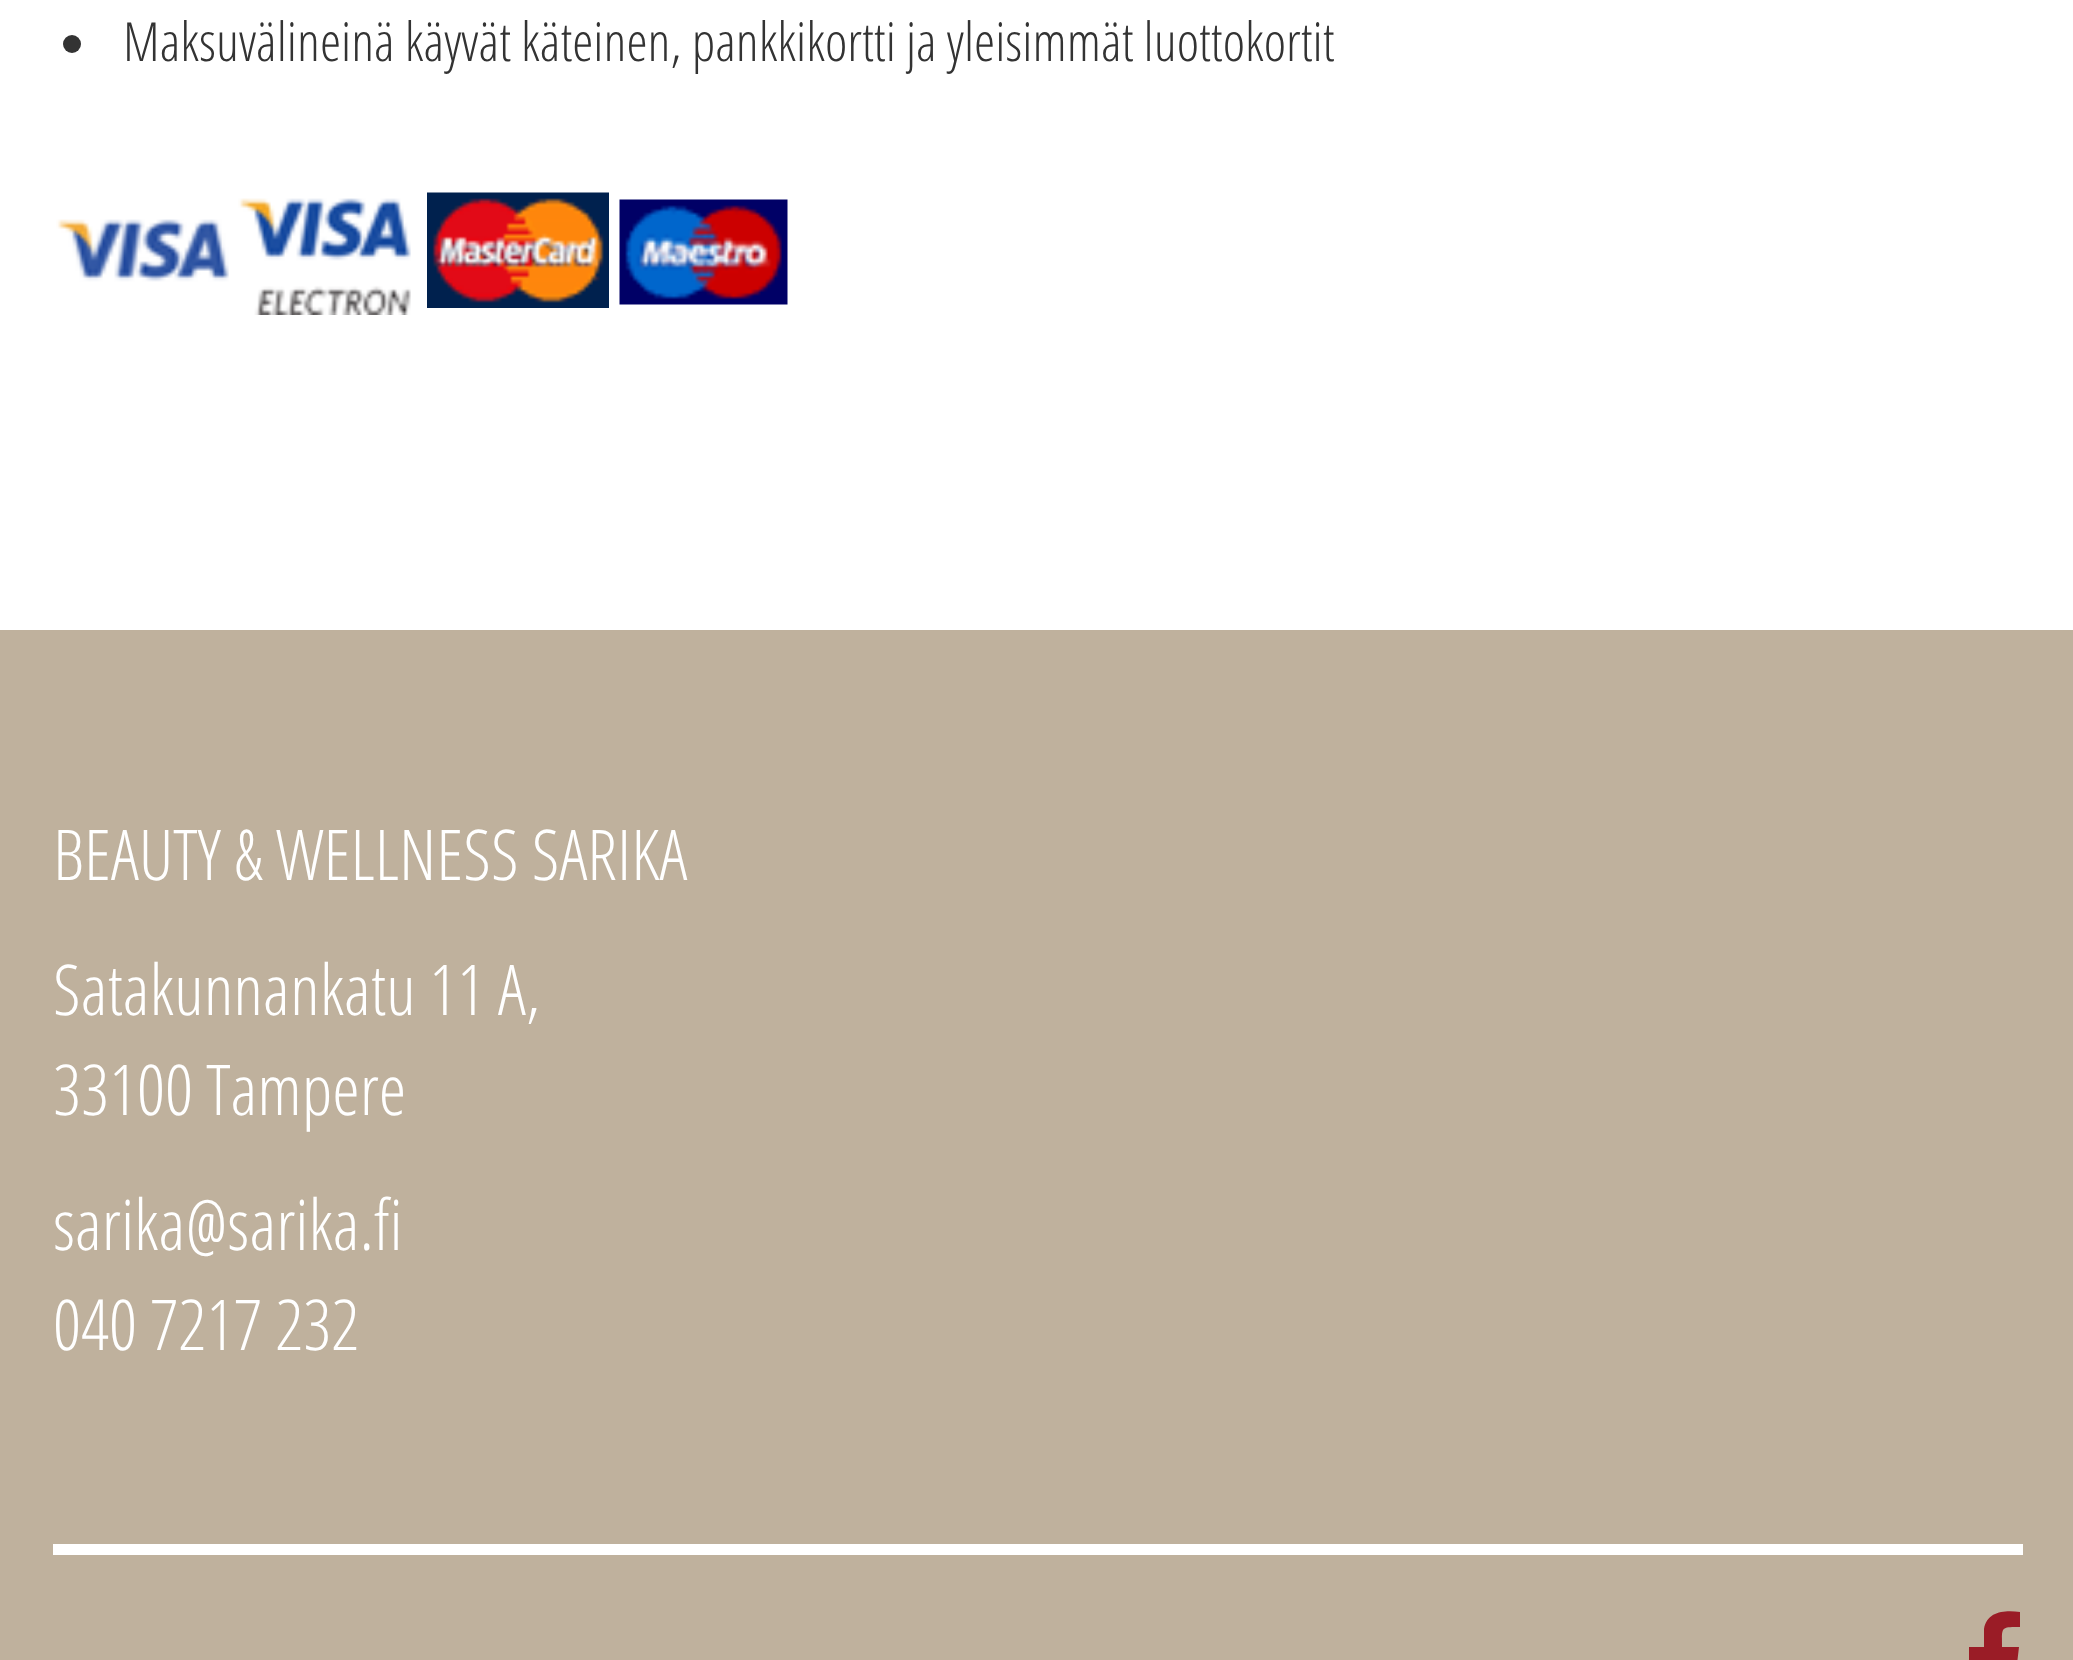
async function draw(canvas) {
  canvas.width = 2073
  canvas.height = 1660
  const ctx = canvas.getContext('2d')
  ctx.miterLimit = 4
  ctx.fontKerning = 'normal'
  async function loadImage(src) {
    const img = new Image()
    img.src = src
    await img.decode()
    return img
  }

  ctx.fillStyle = '#fff'
  ctx.fillRect(0, 0, 2073, 1660)
  ctx.fillStyle = '#333'
  ctx.beginPath()
  ctx.arc(72, 44, 9, 0, 2 * Math.PI)
  ctx.fill()
  ctx.font = '300 53.9px Open Sans Condensed'
  ctx.fillText('Maksuvälineinä käyvät käteinen, pankkikortti ja yleisimmät luottokortit', 123, 61)
  ctx.drawImage(await loadImage('image0.png'), 56, 219, 173, 63)
  ctx.drawImage(await loadImage('image1.png'), 238, 198, 173, 117)
  ctx.drawImage(await loadImage('image2.png'), 427, 192, 182, 116)
  ctx.drawImage(await loadImage('image3.png'), 619, 199, 169, 106)
  ctx.fillStyle = '#bfb19d'
  ctx.fillRect(0, 630, 2073, 1030)
  ctx.font = '300 70px Open Sans Condensed'
  ctx.fillStyle = '#fff'
  ctx.fillText('BEAUTY & WELLNESS SARIKA', 53, 880)
  ctx.fillText('Satakunnankatu 11 A,', 53, 1015)
  ctx.fillText('33100 Tampere', 53, 1115)
  ctx.fillText('sarika@sarika.fi', 53, 1250)
  ctx.fillText('040 7217 232', 53, 1350)
  ctx.fillRect(53, 1544, 1970, 11)
  ctx.fillStyle = '#9a1c26'
  ctx.beginPath()
  ctx.moveTo(2020, 1612)
  ctx.lineTo(2020, 1627)
  ctx.bezierCurveTo(2000, 1627, 2002, 1627, 2002, 1647)
  ctx.lineTo(2019, 1647)
  ctx.lineTo(2017, 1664)
  ctx.lineTo(2002, 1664)
  ctx.lineTo(2002, 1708)
  ctx.lineTo(1984, 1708)
  ctx.lineTo(1984, 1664)
  ctx.lineTo(1969, 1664)
  ctx.lineTo(1969, 1647)
  ctx.lineTo(1984, 1647)
  ctx.lineTo(1984, 1629)
  ctx.bezierCurveTo(1987, 1611, 2005, 1610, 2020, 1612)
  ctx.closePath()
  ctx.fill()
}

draw(document.querySelector('canvas'))
